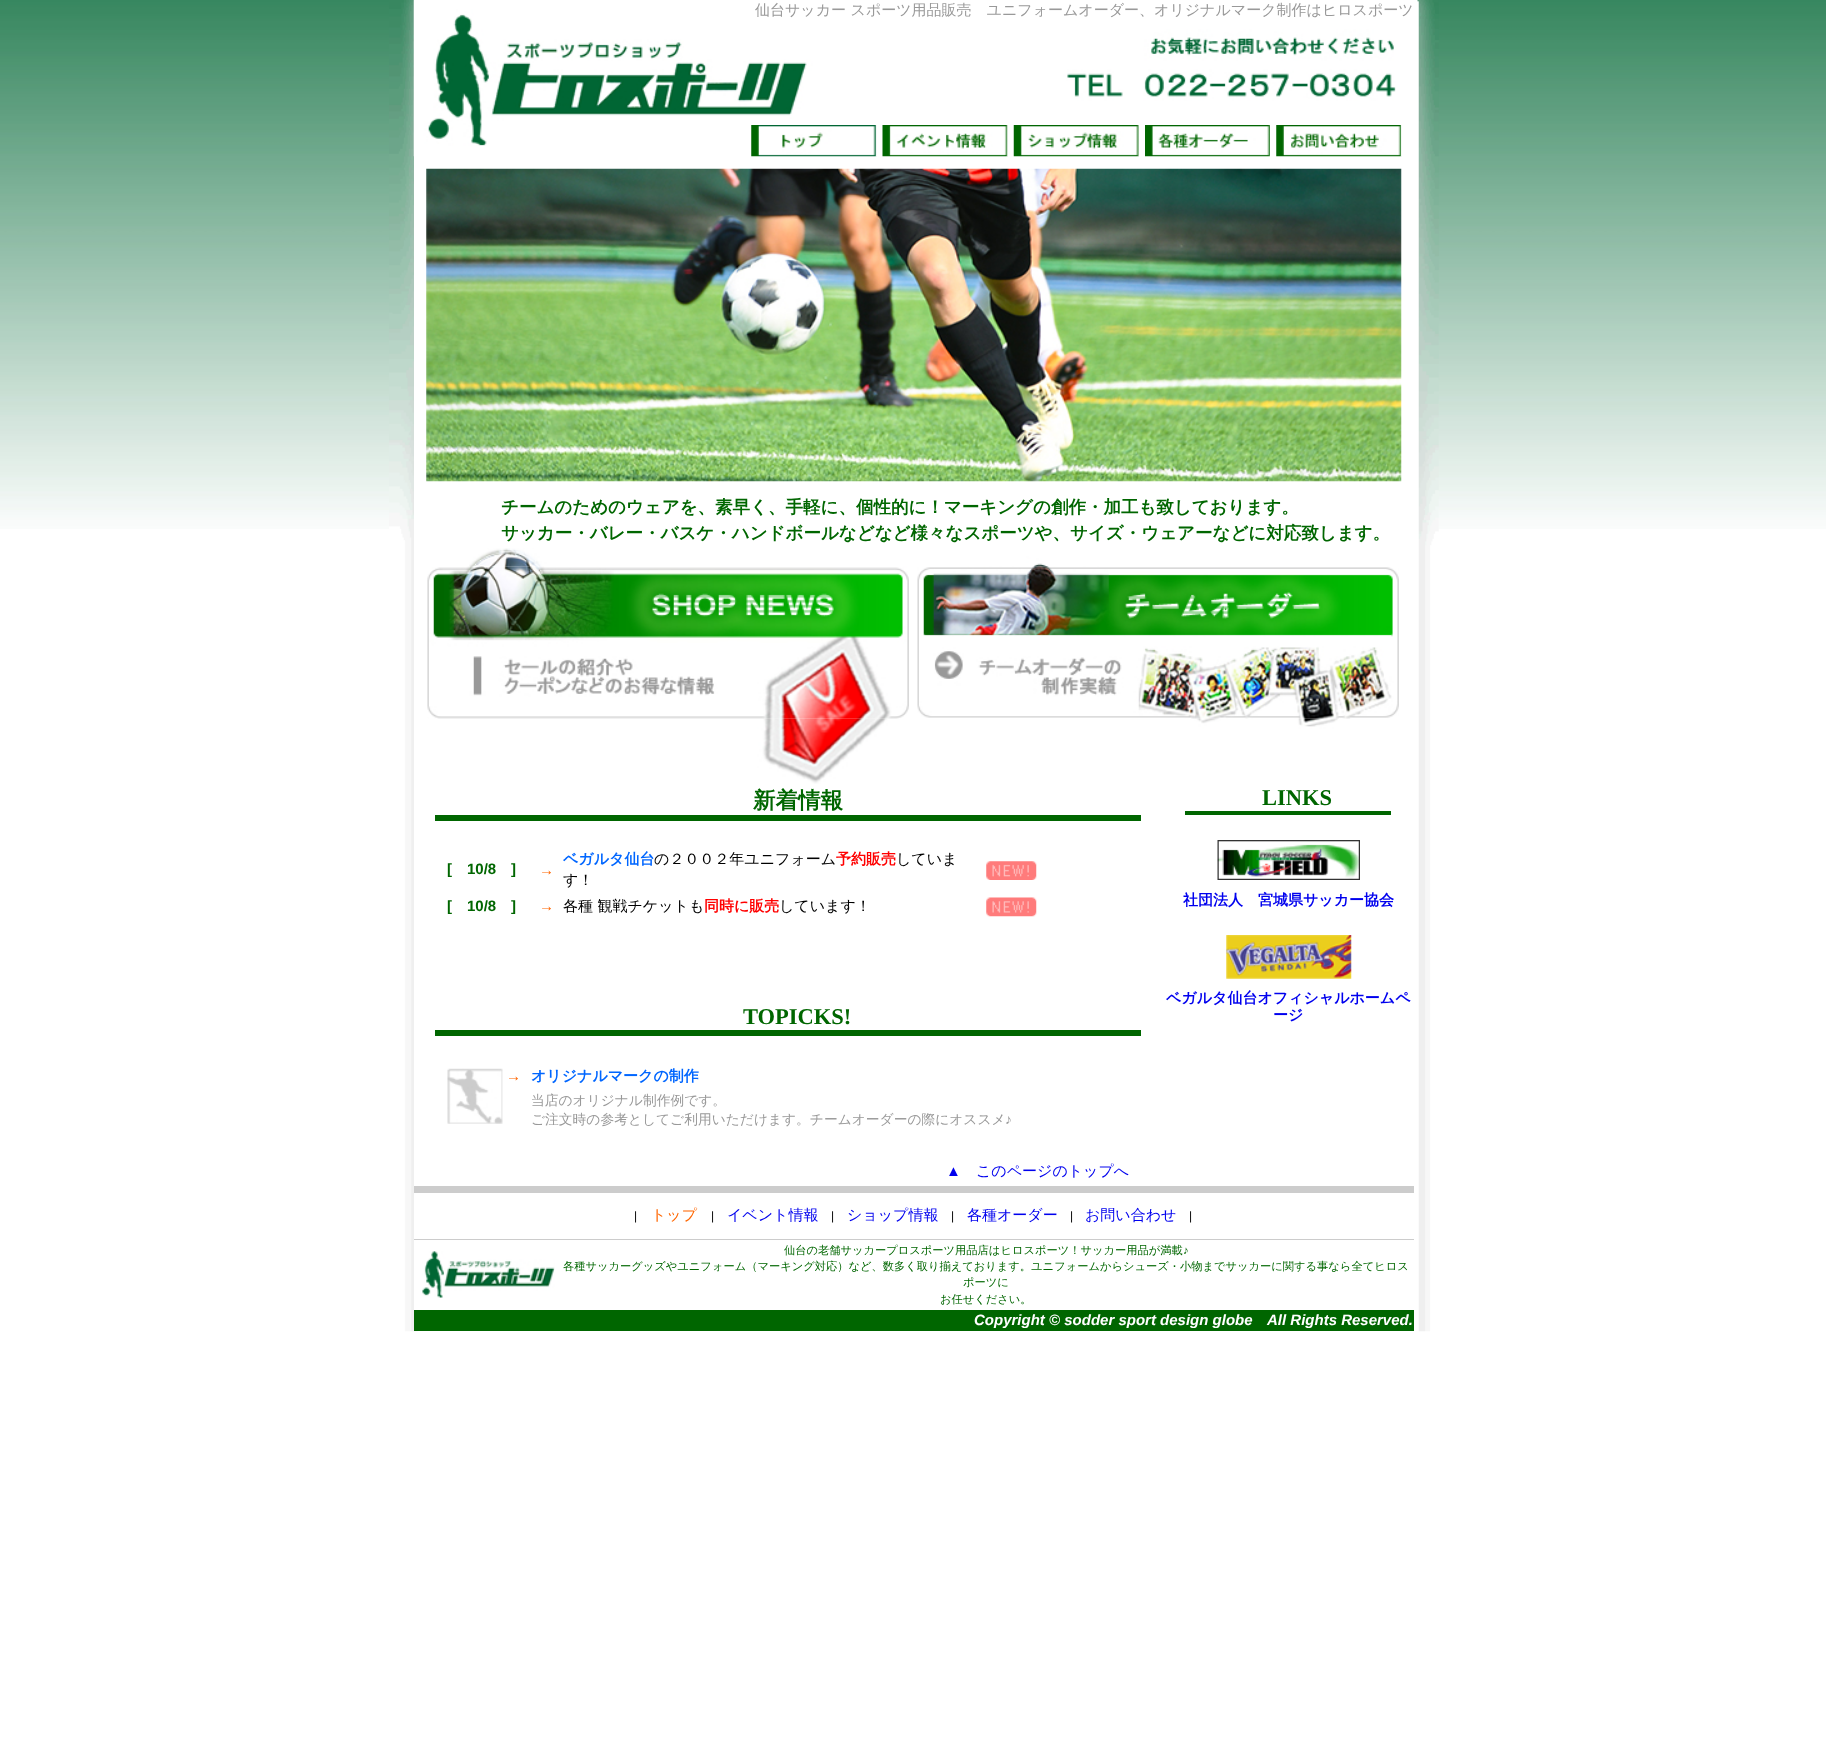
async function draw(canvas) {
  canvas.width = 1826
  canvas.height = 1763
  const ctx = canvas.getContext('2d')
  ctx.miterLimit = 4
  ctx.fontKerning = 'normal'
  async function loadImage(src) {
    const img = new Image()
    img.src = src
    await img.decode()
    return img
  }

  ctx.fillStyle = '#fff'
  ctx.fillRect(0, 0, 1826, 1763)
  ctx.drawImage(await loadImage('image0.png'), 0, 0, 1826, 529)
  ctx.drawImage(await loadImage('image1.png'), 389, 0, 1050, 1332)
  ctx.fillRect(414, 0, 4, 1310)
  ctx.drawImage(await loadImage('image2.png'), 413, 0, 983, 125)
  ctx.font = '500 15px WenQuanYi Zen Hei'
  ctx.fillStyle = '#999'
  ctx.fillText('仙台サッカー スポーツ用品販売　ユニフォームオーダー、オリジナルマーク制作はヒロスポーツ', 755, 15)
  ctx.drawImage(await loadImage('image3.png'), 413, 125, 74, 32)
  ctx.drawImage(await loadImage('image4.png'), 751, 125, 126, 32)
  ctx.fillStyle = '#f3f8f6'
  ctx.fillRect(876, 125, 1, 31)
  ctx.drawImage(await loadImage('image5.png'), 882, 125, 126, 32)
  ctx.fillStyle = '#ffffff80'
  ctx.fillRect(1007, 125, 1, 31)
  ctx.drawImage(await loadImage('image6.png'), 1013, 125, 126, 32)
  ctx.fillStyle = '#ffffff40'
  ctx.fillRect(1138, 125, 1, 31)
  ctx.drawImage(await loadImage('image7.png'), 1145, 125, 125, 32)
  ctx.drawImage(await loadImage('image8.png'), 1276, 125, 126, 32)
  ctx.fillStyle = '#f3f8f3'
  ctx.fillRect(1401, 125, 1, 31)
  ctx.drawImage(await loadImage('image9.png'), 426, 168, 976, 314)
  ctx.font = 'bold 17.5px WenQuanYi Zen Hei'
  ctx.fillStyle = '#060'
  ctx.fillText('チームのためのウェアを、素早く、手軽に、個性的に！マーキングの創作・加工も致しております。', 501, 513)
  ctx.fillText('サッカー・バレー・バスケ・ハンドボールなどなど様々なスポーツや、サイズ・ウェアーなどに対応致します。', 501, 539)
  ctx.drawImage(await loadImage('image10.png'), 469, 548, 577, 19)
  ctx.drawImage(await loadImage('image11.png'), 427, 566, 482, 153)
  ctx.drawImage(await loadImage('image12.png'), 917, 566, 482, 153)
  ctx.drawImage(await loadImage('image13.png'), 439, 718, 910, 66)
  ctx.fillRect(435, 815, 706, 6)
  ctx.font = 'bold 22.5px WenQuanYi Zen Hei'
  ctx.fillText('新着情報', 753, 808)
  ctx.font = 'bold 15px Liberation Sans'
  ctx.fillText('[', 447, 874)
  ctx.fillText('10/8', 467, 874)
  ctx.fillText(']', 511, 874)
  ctx.fillStyle = '#f60'
  ctx.fillText('→', 539, 875)
  ctx.font = 'bold 15px WenQuanYi Zen Hei'
  ctx.fillStyle = '#06f'
  ctx.fillText('ベガルタ仙台', 563, 864)
  ctx.font = '500 15px WenQuanYi Zen Hei'
  ctx.fillStyle = '#000'
  ctx.fillText('の２００２年ユニフォーム', 654, 864)
  ctx.font = 'bold 15px WenQuanYi Zen Hei'
  ctx.fillStyle = '#f00'
  ctx.fillText('予約販売', 836, 864)
  ctx.font = '500 15px WenQuanYi Zen Hei'
  ctx.fillStyle = '#000'
  ctx.fillText('していま', 896, 864)
  ctx.fillText('す！', 563, 885)
  ctx.drawImage(await loadImage('image14.png'), 986, 861, 51, 19)
  ctx.font = 'bold 15px Liberation Sans'
  ctx.fillStyle = '#060'
  ctx.fillText('[', 447, 911)
  ctx.fillText('10/8', 467, 911)
  ctx.fillText(']', 511, 911)
  ctx.fillStyle = '#f60'
  ctx.fillText('→', 539, 911)
  ctx.font = '500 15px WenQuanYi Zen Hei'
  ctx.fillStyle = '#000'
  ctx.fillText('各種 観戦チケットも', 563, 911)
  ctx.font = 'bold 15px WenQuanYi Zen Hei'
  ctx.fillStyle = '#f00'
  ctx.fillText('同時に販売', 704, 911)
  ctx.font = '500 15px WenQuanYi Zen Hei'
  ctx.fillStyle = '#000'
  ctx.fillText('しています！', 779, 911)
  ctx.drawImage(await loadImage('image15.png'), 986, 897, 51, 20)
  ctx.fillStyle = '#060'
  ctx.fillRect(435, 1030, 706, 6)
  ctx.font = 'bold 22.5px Liberation Serif'
  ctx.fillText('TOPICKS!', 743, 1024)
  ctx.drawImage(await loadImage('image16.png'), 447, 1068, 56, 56)
  ctx.font = 'bold 15px Liberation Sans'
  ctx.fillStyle = '#f60'
  ctx.fillText('→', 506, 1081)
  ctx.font = 'bold 15px WenQuanYi Zen Hei'
  ctx.fillStyle = '#06f'
  ctx.fillText('オリジナルマークの制作', 531, 1081)
  ctx.font = '500 13.75px WenQuanYi Zen Hei'
  ctx.fillStyle = '#999'
  ctx.fillText('当店のオリジナル制作例です。', 531, 1105)
  ctx.fillText('ご注文時の参考としてご利用いただけます。チームオーダーの際にオススメ', 531, 1124)
  ctx.font = '13.75px Liberation Sans'
  ctx.fillText('♪', 1005, 1124)
  ctx.font = '15px Liberation Sans'
  ctx.fillStyle = '#00e'
  ctx.fillText('▲', 946, 1176)
  ctx.font = '500 15px WenQuanYi Zen Hei'
  ctx.fillText('このページのトップへ', 976, 1176)
  ctx.fillStyle = '#060'
  ctx.fillRect(1185, 811, 206, 4)
  ctx.font = 'bold 22.5px Liberation Serif'
  ctx.fillText('LINKS', 1262, 805)
  ctx.drawImage(await loadImage('image17.png'), 1217, 840, 143, 40)
  ctx.font = 'bold 15px WenQuanYi Zen Hei'
  ctx.fillStyle = '#00e'
  ctx.fillText('社団法人　宮城県サッカー協会', 1183, 905)
  ctx.drawImage(await loadImage('image18.png'), 1226, 935, 126, 44)
  ctx.fillText('ベガルタ仙台オフィシャルホームペ', 1166, 1003)
  ctx.fillText('ージ', 1273, 1020)
  ctx.fillStyle = '#ccc'
  ctx.fillRect(414, 1186, 1000, 7)
  ctx.font = '12px Liberation Sans'
  ctx.fillStyle = '#000'
  ctx.fillText('|', 634, 1220)
  ctx.font = '500 15px WenQuanYi Zen Hei'
  ctx.fillStyle = '#f60'
  ctx.fillText('トップ', 651, 1220)
  ctx.font = '12px Liberation Sans'
  ctx.fillStyle = '#000'
  ctx.fillText('|', 711, 1220)
  ctx.font = '500 15px WenQuanYi Zen Hei'
  ctx.fillStyle = '#00e'
  ctx.fillText('イベント情報', 727, 1220)
  ctx.font = '12px Liberation Sans'
  ctx.fillStyle = '#000'
  ctx.fillText('|', 831, 1220)
  ctx.font = '500 15px WenQuanYi Zen Hei'
  ctx.fillStyle = '#00e'
  ctx.fillText('ショップ情報', 847, 1220)
  ctx.font = '12px Liberation Sans'
  ctx.fillStyle = '#000'
  ctx.fillText('|', 951, 1220)
  ctx.font = '500 15px WenQuanYi Zen Hei'
  ctx.fillStyle = '#00e'
  ctx.fillText('各種オーダー', 967, 1220)
  ctx.font = '12px Liberation Sans'
  ctx.fillStyle = '#000'
  ctx.fillText('|', 1070, 1220)
  ctx.font = '500 15px WenQuanYi Zen Hei'
  ctx.fillStyle = '#00e'
  ctx.fillText('お問い合わせ', 1085, 1220)
  ctx.font = '12px Liberation Sans'
  ctx.fillStyle = '#000'
  ctx.fillText('|', 1189, 1220)
  ctx.fillStyle = '#ccc'
  ctx.fillRect(414, 1239, 1000, 1)
  ctx.drawImage(await loadImage('image19.png'), 422, 1251, 133, 47)
  ctx.font = '500 11.25px WenQuanYi Zen Hei'
  ctx.fillStyle = '#060'
  ctx.fillText('仙台の老舗サッカープロスポーツ用品店はヒロスポーツ！サッカー用品が満載', 784, 1254)
  ctx.font = '11.25px Liberation Sans'
  ctx.fillText('♪', 1183, 1254)
  ctx.font = '500 11.25px WenQuanYi Zen Hei'
  ctx.fillText('各種サッカーグッズやユニフォーム（マーキング対応）など、数多く取り揃えております。ユニフォームからシューズ・小物までサッカーに関する事なら全てヒロス', 563, 1270)
  ctx.fillText('ポーツに', 963, 1286)
  ctx.fillText('お任せください。', 940, 1303)
  ctx.fillRect(414, 1310, 1000, 21)
  ctx.font = 'italic bold 15px Liberation Sans'
  ctx.fillStyle = '#fff'
  ctx.fillText('Copyright © sodder sport design globe', 974, 1325)
  ctx.fillText('All Rights Reserved.', 1267, 1325)
}

draw(document.querySelector('canvas'))
